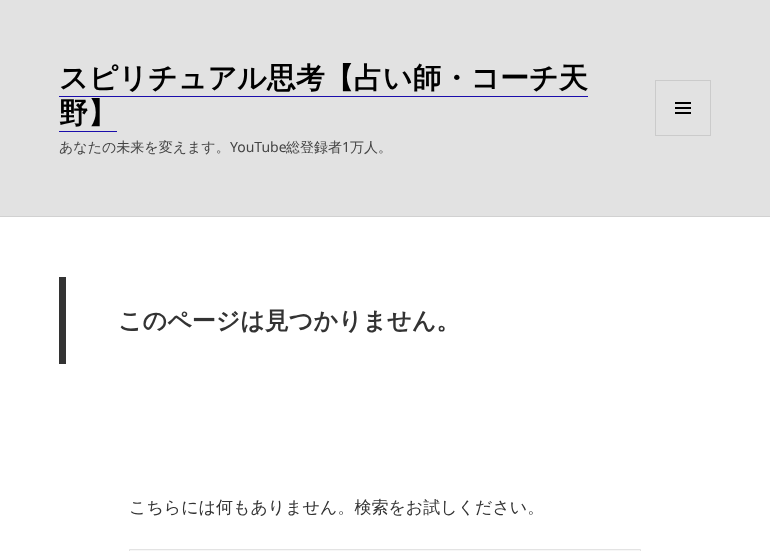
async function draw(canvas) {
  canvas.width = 770
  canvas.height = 551
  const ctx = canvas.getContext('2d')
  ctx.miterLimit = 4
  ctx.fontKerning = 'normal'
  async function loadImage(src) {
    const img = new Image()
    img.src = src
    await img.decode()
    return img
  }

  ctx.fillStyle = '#fff'
  ctx.fillRect(0, 0, 770, 551)
  ctx.fillStyle = '#e2e2e2'
  ctx.fillRect(0, 0, 770, 216)
  ctx.fillStyle = '#d1d1d1'
  ctx.fillRect(0, 216, 770, 1)
  ctx.font = 'bold 29px WenQuanYi Zen Hei'
  ctx.fillStyle = '#000'
  ctx.fillText('スピリチュアル思考【占い師・コーチ天', 59, 88)
  ctx.fillText('野】', 59, 123)
  ctx.fillStyle = '#1a0dab'
  ctx.fillRect(59, 96, 529, 1)
  ctx.fillRect(59, 131, 58, 1)
  ctx.strokeStyle = '#cbcbcb'
  ctx.strokeRect(655.5, 80.5, 55, 55)
  ctx.drawImage(await loadImage('image0.png'), 675, 102, 16, 12)
  ctx.font = '500 14px WenQuanYi Zen Hei'
  ctx.fillStyle = '#444'
  ctx.fillText('あなたの未来を変えます。', 59, 152)
  ctx.font = '14px Noto Sans'
  ctx.fillText('YouTube', 230, 152)
  ctx.font = '500 14px WenQuanYi Zen Hei'
  ctx.fillText('総登録者', 286, 152)
  ctx.font = '14px Noto Sans'
  ctx.fillText('1', 342, 152)
  ctx.font = '500 14px WenQuanYi Zen Hei'
  ctx.fillText('万人。', 350, 152)
  ctx.fillStyle = '#333'
  ctx.fillRect(59, 277, 7, 87)
  ctx.font = 'bold 24px WenQuanYi Zen Hei'
  ctx.fillText('このページは見つかりません。', 118, 329)
  ctx.font = '500 17px WenQuanYi Zen Hei'
  ctx.fillText('こちらには何もありません。検索をお試しください。', 129, 513)
  ctx.fillStyle = '#f7f7f7'
  ctx.beginPath()
  ctx.rect(129.5, 549.5, 511, 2)
  ctx.fill()
  ctx.strokeStyle = '#e3e3e3'
  ctx.stroke()
}

draw(document.querySelector('canvas'))
